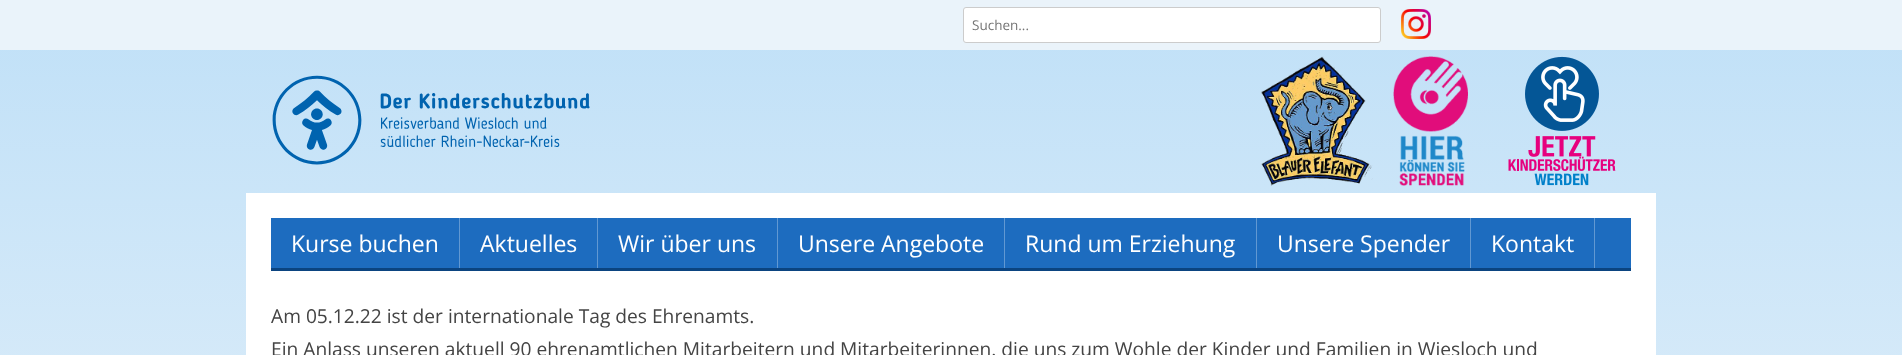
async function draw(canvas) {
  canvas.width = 1902
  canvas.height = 355
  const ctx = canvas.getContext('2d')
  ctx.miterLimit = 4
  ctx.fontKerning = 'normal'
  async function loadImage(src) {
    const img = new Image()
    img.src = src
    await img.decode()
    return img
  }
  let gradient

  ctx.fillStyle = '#fff'
  ctx.fillRect(0, 0, 1902, 355)
  ctx.fillStyle = '#eaf3fa'
  ctx.fillRect(0, 0, 1902, 50)
  ctx.fillStyle = '#fff'
  ctx.beginPath()
  ctx.roundRect(963.5, 7.5, 417, 35, 2.5)
  ctx.fill()
  ctx.strokeStyle = '#ccc'
  ctx.stroke()
  ctx.font = '13.5px Open Sans'
  ctx.fillStyle = '#757575'
  ctx.fillText('Suchen...', 972, 30)
  ctx.drawImage(await loadImage('image0.png'), 1401, 9, 30, 30)
  gradient = ctx.createLinearGradient(951, -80, 951, 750)
  gradient.addColorStop(0, '#bbdef7')
  gradient.addColorStop(1, '#eaf3fa')
  ctx.fillStyle = gradient
  ctx.fillRect(0, 50, 1902, 305)
  ctx.drawImage(await loadImage('image1.png'), 272, 75, 318, 90)
  ctx.drawImage(await loadImage('image2.png'), 1261, 56, 112, 130)
  ctx.drawImage(await loadImage('image3.png'), 1393, 56, 75, 130)
  ctx.drawImage(await loadImage('image4.png'), 1508, 56, 108, 130)
  ctx.fillStyle = '#fff'
  ctx.fillRect(246, 193, 1410, 162)
  ctx.fillStyle = '#1d6cbf'
  ctx.fillRect(271, 218, 1360, 50)
  ctx.fillStyle = '#0b4480'
  ctx.fillRect(271, 268, 1360, 3)
  ctx.fillStyle = '#6198d2'
  ctx.fillRect(459, 218, 1, 50)
  ctx.font = '23px Open Sans'
  ctx.fillStyle = '#fff'
  ctx.fillText('Kurse buchen', 291, 252)
  ctx.fillStyle = '#6198d2'
  ctx.fillRect(597, 218, 1, 50)
  ctx.fillStyle = '#fff'
  ctx.fillText('Aktuelles', 480, 252)
  ctx.fillStyle = '#6198d2'
  ctx.fillRect(777, 218, 1, 50)
  ctx.fillStyle = '#fff'
  ctx.fillText('Wir über uns', 618, 252)
  ctx.fillStyle = '#6198d2'
  ctx.fillRect(1004, 218, 1, 50)
  ctx.fillStyle = '#fff'
  ctx.fillText('Unsere Angebote', 798, 252)
  ctx.fillStyle = '#6198d2'
  ctx.fillRect(1256, 218, 1, 50)
  ctx.fillStyle = '#fff'
  ctx.fillText('Rund um Erziehung', 1025, 252)
  ctx.fillStyle = '#6198d2'
  ctx.fillRect(1470, 218, 1, 50)
  ctx.fillStyle = '#fff'
  ctx.fillText('Unsere Spender', 1277, 252)
  ctx.fillStyle = '#6198d2'
  ctx.fillRect(1594, 218, 1, 50)
  ctx.fillStyle = '#fff'
  ctx.fillText('Kontakt', 1491, 252)
  ctx.font = '19.2px Open Sans'
  ctx.fillStyle = '#444'
  ctx.fillText('Am 05.12.22 ist der internationale Tag des Ehrenamts.', 271, 323)
  ctx.fillText('Ein Anlass unseren aktuell 90 ehrenamtlichen Mitarbeitern und Mitarbeiterinnen. die uns zum Wohle der Kinder und Familien in Wiesloch und', 271, 356)
}

draw(document.querySelector('canvas'))
